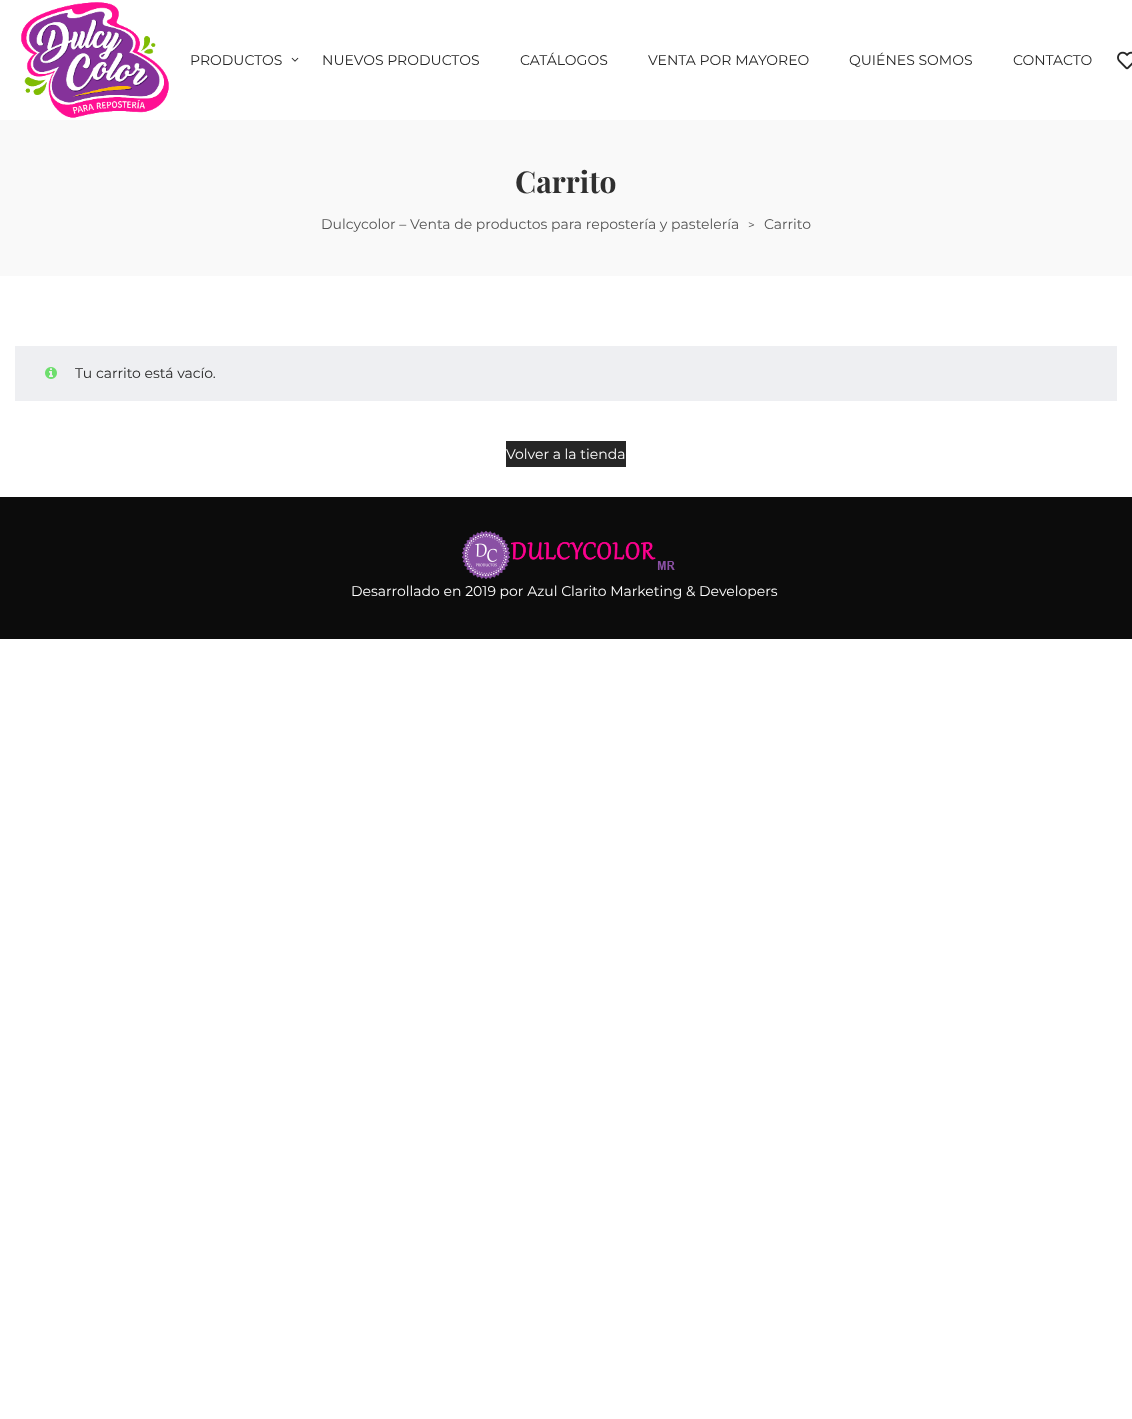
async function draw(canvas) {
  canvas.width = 1132
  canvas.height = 1419
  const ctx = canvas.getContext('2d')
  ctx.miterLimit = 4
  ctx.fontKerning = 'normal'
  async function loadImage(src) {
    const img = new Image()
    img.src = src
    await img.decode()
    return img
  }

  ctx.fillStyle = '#fff'
  ctx.fillRect(0, 0, 1132, 1419)
  ctx.drawImage(await loadImage('image0.png'), 21, 2, 148, 116)
  ctx.font = '14px Montserrat'
  ctx.fillStyle = '#262626'
  ctx.fillText('PRODUCTOS', 190, 65)
  ctx.drawImage(await loadImage('image1.png'), 291, 57, 8, 5)
  ctx.fillText('NUEVOS PRODUCTOS', 322, 65)
  ctx.fillText('CATÁLOGOS', 520, 65)
  ctx.fillText('VENTA POR MAYOREO', 648, 65)
  ctx.fillText('QUIÉNES SOMOS', 849, 65)
  ctx.fillText('CONTACTO', 1013, 65)
  ctx.drawImage(await loadImage('image2.png'), 1117, 51, 15, 19)
  ctx.fillStyle = '#f9f9f9'
  ctx.fillRect(0, 120, 1132, 156)
  ctx.font = 'bold 30px Playfair Display'
  ctx.fillStyle = '#2f2f2f'
  ctx.fillText('Carrito', 515, 193)
  ctx.font = '14px Montserrat'
  ctx.fillStyle = '#535353'
  ctx.fillText('Dulcycolor – Venta de productos para repostería y pastelería', 321, 229)
  ctx.font = '12px Montserrat'
  ctx.fillText('>', 748, 229)
  ctx.font = '14px Montserrat'
  ctx.fillText('Carrito', 764, 229)
  ctx.fillStyle = '#eeeff2'
  ctx.fillRect(15, 346, 1102, 55)
  ctx.drawImage(await loadImage('image3.png'), 45, 367, 12, 12)
  ctx.fillStyle = '#262626'
  ctx.fillText('Tu carrito está vacío.', 75, 378)
  ctx.fillRect(506, 441, 120, 26)
  ctx.fillStyle = '#fff'
  ctx.fillText('Volver a la tienda', 506, 459)
  ctx.fillStyle = '#0c0c0c'
  ctx.fillRect(0, 497, 1132, 142)
  ctx.drawImage(await loadImage('image4.png'), 462, 531, 213, 48)
  ctx.fillStyle = '#fff'
  ctx.fillText('Desarrollado en 2019 por Azul Clarito Marketing & Developers', 351, 596)
}

draw(document.querySelector('canvas'))
